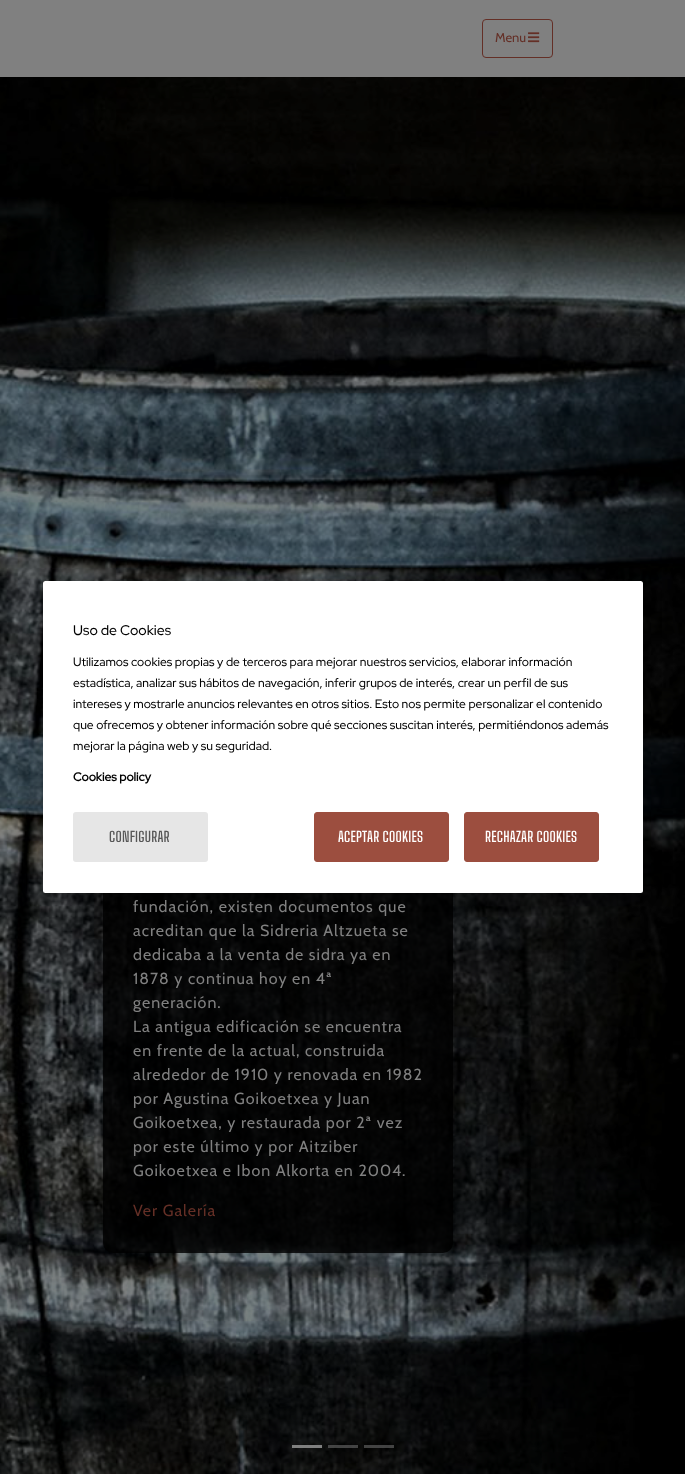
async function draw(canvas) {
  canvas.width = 685
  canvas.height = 1474
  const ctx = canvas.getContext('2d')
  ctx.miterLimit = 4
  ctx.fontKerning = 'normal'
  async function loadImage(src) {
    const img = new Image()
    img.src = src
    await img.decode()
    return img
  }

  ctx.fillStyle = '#fff'
  ctx.fillRect(0, 0, 685, 1474)
  ctx.fillStyle = '#808080'
  ctx.fillRect(0, 0, 685, 77)
  ctx.beginPath()
  ctx.roundRect(482.5, 19.5, 70, 38, 3.5)
  ctx.strokeStyle = '#642f26'
  ctx.stroke()
  ctx.font = '13px Cabin'
  ctx.fillStyle = '#642f26'
  ctx.fillText('Menu', 495, 42)
  ctx.drawImage(await loadImage('image0.png'), 528, 32, 12, 11)
  ctx.drawImage(await loadImage('image1.png'), 0, 77, 685, 1397)
  ctx.fillStyle = '#000000cc'
  ctx.beginPath()
  ctx.roundRect(103, 799, 350, 454, 10)
  ctx.fill()
  ctx.fillStyle = '#00000033'
  ctx.filter = 'blur(9px)'
  ctx.beginPath()
  ctx.roundRect(43, 581, 600, 312, 2.5)
  ctx.fill()
  ctx.filter = 'none'
  ctx.fillStyle = '#fff'
  ctx.beginPath()
  ctx.roundRect(43, 581, 600, 312, 2.5)
  ctx.fill()
  ctx.font = '500 14px Red Hat Display'
  ctx.fillStyle = '#000'
  ctx.fillText('Uso de Cookies', 73, 635)
  ctx.font = '500 12px Red Hat Display'
  ctx.fillText('Utilizamos cookies propias y de terceros para mejorar nuestros servicios, elaborar información', 73, 666)
  ctx.fillText('estadística, analizar sus hábitos de navegación, inferir grupos de interés, crear un perfil de sus', 73, 687)
  ctx.fillText('intereses y mostrarle anuncios relevantes en otros sitios. Esto nos permite personalizar el contenido', 73, 708)
  ctx.fillText('que ofrecemos y obtener información sobre qué secciones suscitan interés, permitiéndonos además', 73, 729)
  ctx.fillText('mejorar la página web y su seguridad.', 73, 750)
  ctx.font = 'bold 12px Red Hat Display'
  ctx.fillText('Cookies policy', 73, 781)
  ctx.fillStyle = '#e6e6e6'
  ctx.beginPath()
  ctx.roundRect(73, 812, 135, 50, 3)
  ctx.fill()
  ctx.letterSpacing = '0.25px'
  ctx.font = '100 14px Big Shoulders Text'
  ctx.fillStyle = '#565656'
  ctx.fillText('CONFIGURAR', 109, 842)
  ctx.fillStyle = '#9c4e3f'
  ctx.beginPath()
  ctx.roundRect(314.5, 812.5, 134, 49, 2.5)
  ctx.fill()
  ctx.strokeStyle = '#9c4e3f'
  ctx.stroke()
  ctx.fillStyle = '#fff'
  ctx.fillText('ACEPTAR COOKIES', 338, 842)
  ctx.fillStyle = '#9c4e3f'
  ctx.beginPath()
  ctx.roundRect(464.5, 812.5, 134, 49, 2.5)
  ctx.fill()
  ctx.stroke()
  ctx.fillStyle = '#fff'
  ctx.fillText('RECHAZAR COOKIES', 485, 842)
  ctx.letterSpacing = '1px'
  ctx.font = '16px Cabin'
  ctx.fillStyle = '#808080'
  ctx.fillText('fundación, existen documentos que', 133, 912)
  ctx.fillText('acreditan que la Sidreria Altzueta se', 133, 936)
  ctx.fillText('dedicaba a la venta de sidra ya en', 133, 960)
  ctx.fillText('1878 y continua hoy en 4ª', 133, 984)
  ctx.fillText('generación.', 133, 1008)
  ctx.fillText('La antigua edificación se encuentra', 133, 1032)
  ctx.fillText('en frente de la actual, construida', 133, 1056)
  ctx.fillText('alrededor de 1910 y renovada en 1982', 133, 1080)
  ctx.fillText('por Agustina Goikoetxea y Juan', 133, 1104)
  ctx.fillText('Goikoetxea, y restaurada por 2ª vez', 133, 1128)
  ctx.fillText('por este último y por Aitziber', 133, 1152)
  ctx.fillText('Goikoetxea e Ibon Alkorta en 2004.', 133, 1176)
  ctx.fillStyle = '#642f26'
  ctx.fillText('Ver Galería', 133, 1216)
  ctx.fillStyle = '#808080'
  ctx.fillRect(292, 1445, 30, 3)
  ctx.fillStyle = '#80808080'
  ctx.fillRect(328, 1445, 30, 3)
  ctx.fillRect(364, 1445, 30, 3)
}

draw(document.querySelector('canvas'))
